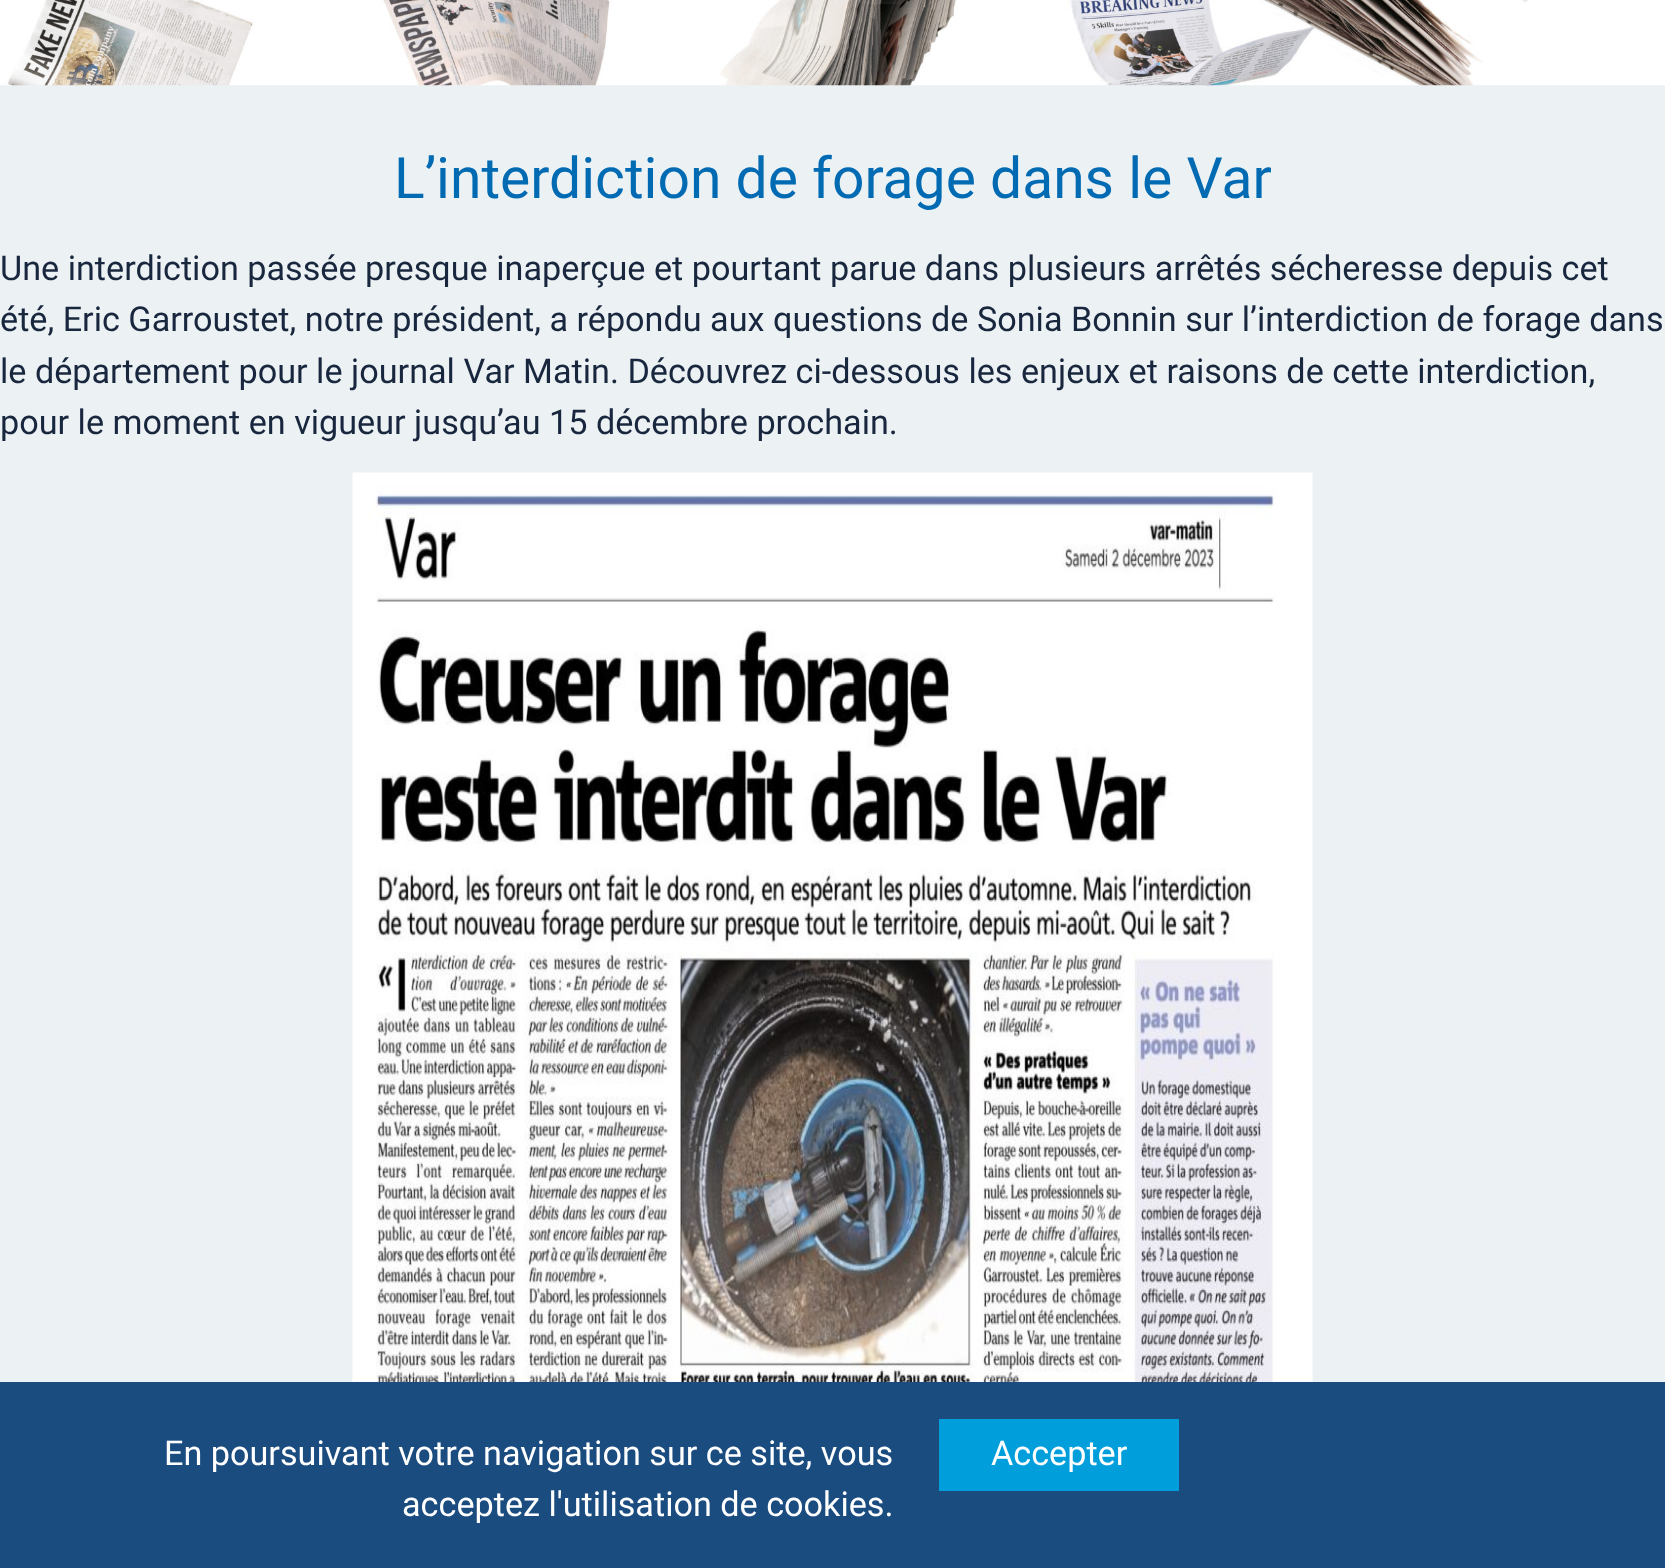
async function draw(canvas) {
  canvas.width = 1665
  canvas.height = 1568
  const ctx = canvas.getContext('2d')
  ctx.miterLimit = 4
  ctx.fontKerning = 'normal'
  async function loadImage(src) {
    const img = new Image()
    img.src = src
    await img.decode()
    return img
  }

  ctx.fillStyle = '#ecf1f4'
  ctx.fillRect(0, 0, 1665, 1568)
  ctx.drawImage(await loadImage('image0.png'), 0, 0, 1665, 86)
  ctx.font = '57px Roboto'
  ctx.fillStyle = '#006ab2'
  ctx.fillText('L’interdiction de forage dans le Var', 394, 198)
  ctx.font = '34.2px Roboto'
  ctx.fillStyle = '#18273e'
  ctx.fillText('Une interdiction passée presque inaperçue et pourtant parue dans plusieurs arrêtés sécheresse depuis cet', 0, 280)
  ctx.fillText('été, Eric Garroustet, notre président, a répondu aux questions de Sonia Bonnin sur l’interdiction de forage dans', 0, 331)
  ctx.fillText('le département pour le journal Var Matin. Découvrez ci-dessous les enjeux et raisons de cette interdiction,', 0, 383)
  ctx.fillText('pour le moment en vigueur jusqu’au 15 décembre prochain.', 0, 434)
  ctx.drawImage(await loadImage('image1.png'), 352, 472, 961, 910)
  ctx.fillStyle = '#1a4c80'
  ctx.fillRect(0, 1382, 1665, 186)
  ctx.fillStyle = '#fff'
  ctx.fillText('En poursuivant votre navigation sur ce site, vous', 164, 1465)
  ctx.fillText('acceptez l\'utilisation de cookies.', 402, 1516)
  ctx.fillStyle = '#009edb'
  ctx.fillRect(939, 1419, 240, 72)
  ctx.fillStyle = '#fff'
  ctx.fillText('Accepter', 991, 1465)
}

draw(document.querySelector('canvas'))
